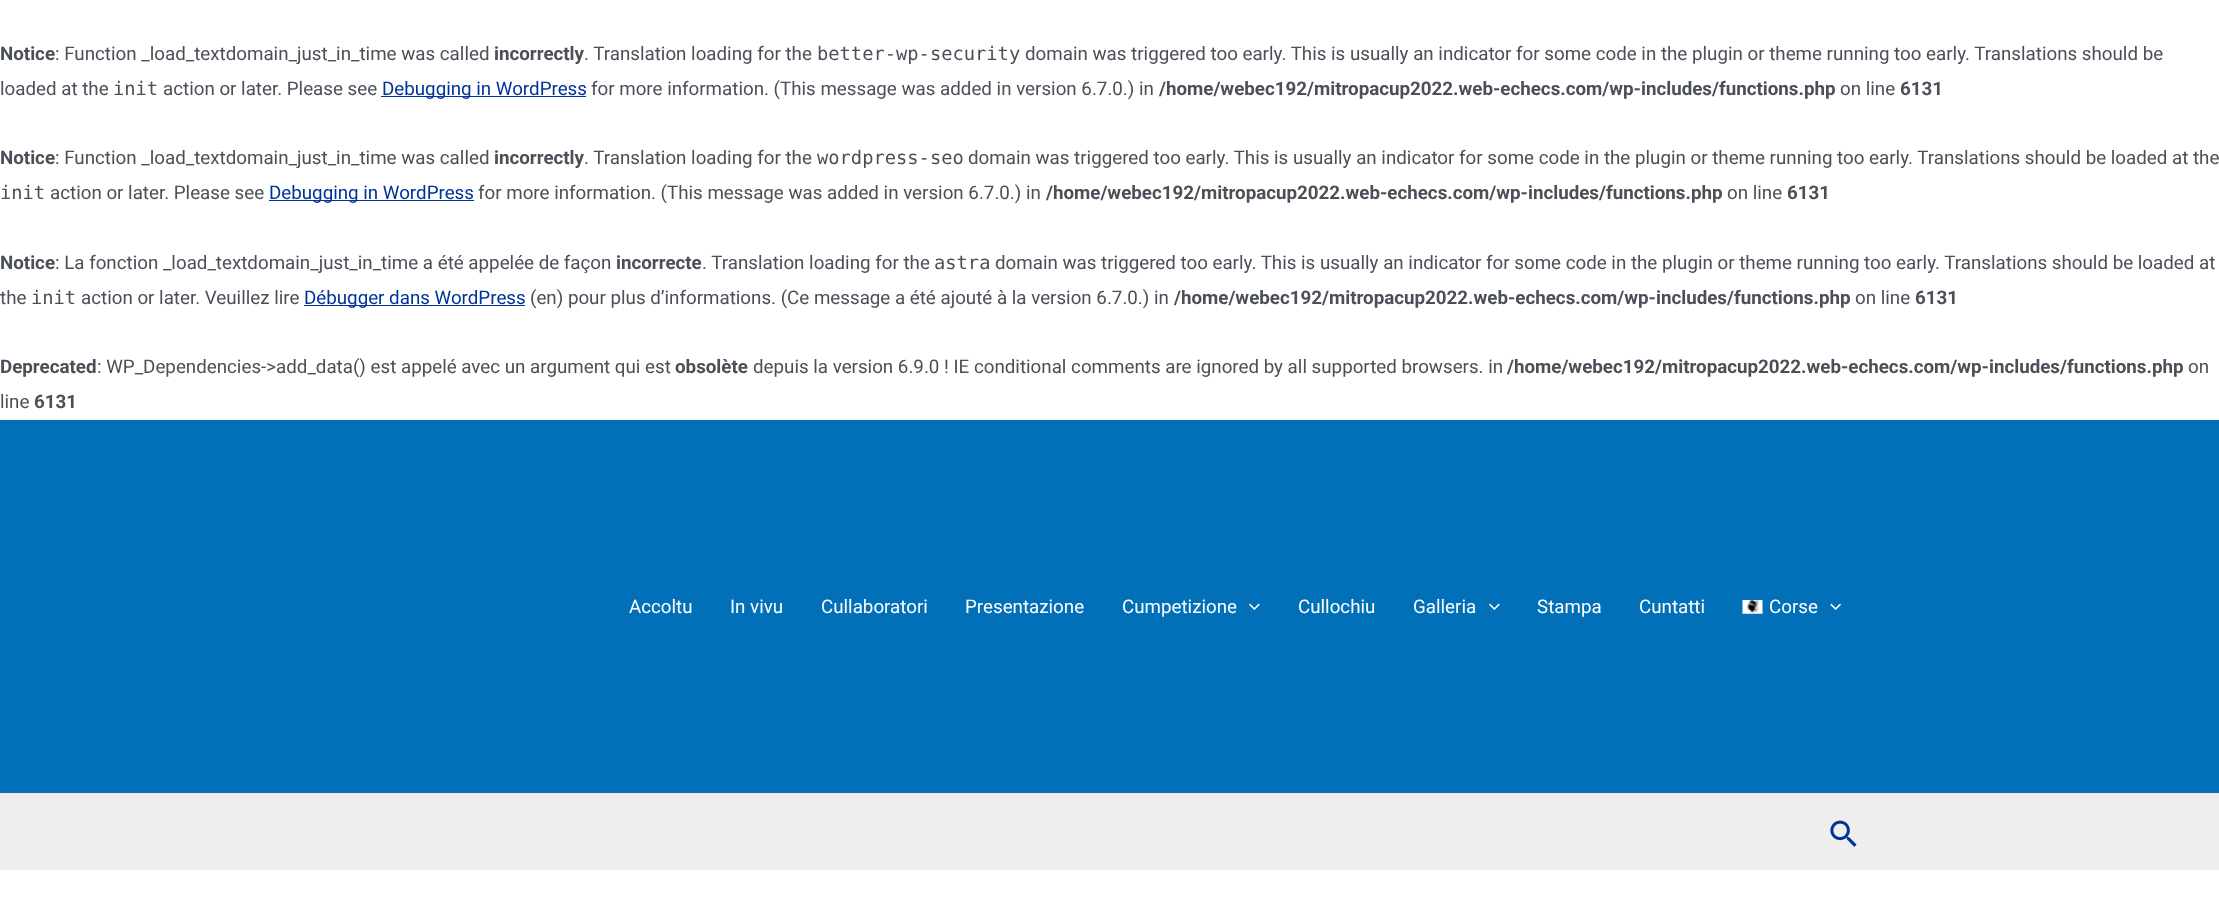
async function draw(canvas) {
  canvas.width = 2219
  canvas.height = 909
  const ctx = canvas.getContext('2d')
  ctx.miterLimit = 4
  ctx.fontKerning = 'normal'
  async function loadImage(src) {
    const img = new Image()
    img.src = src
    await img.decode()
    return img
  }

  ctx.fillStyle = '#fff'
  ctx.fillRect(0, 0, 2219, 909)
  ctx.font = 'bold 18.75px Roboto'
  ctx.fillStyle = '#4b4f58'
  ctx.fillText('Notice', 0, 60)
  ctx.font = '18.75px Roboto'
  ctx.fillText(': Function _load_textdomain_just_in_time was called', 55, 60)
  ctx.font = 'bold 18.75px Roboto'
  ctx.fillText('incorrectly', 494, 60)
  ctx.font = '18.75px Roboto'
  ctx.fillText('. Translation loading for the', 584, 60)
  ctx.font = '18.75px DejaVu Sans Mono'
  ctx.fillText('better-wp-security', 817, 60)
  ctx.font = '18.75px Roboto'
  ctx.fillText('domain was triggered too early. This is usually an indicator for some code in the plugin or theme running too early. Translations should be', 1025, 60)
  ctx.fillText('loaded at the', 0, 95)
  ctx.font = '18.75px DejaVu Sans Mono'
  ctx.fillText('init', 113, 95)
  ctx.font = '18.75px Roboto'
  ctx.fillText('action or later. Please see', 163, 95)
  ctx.fillStyle = '#039'
  ctx.fillRect(381, 96, 205, 1)
  ctx.fillText('Debugging in WordPress', 382, 95)
  ctx.fillStyle = '#4b4f58'
  ctx.fillText('for more information. (This message was added in version 6.7.0.) in', 591, 95)
  ctx.font = 'bold 18.75px Roboto'
  ctx.fillText('/home/webec192/mitropacup2022.web-echecs.com/wp-includes/functions.php', 1159, 95)
  ctx.font = '18.75px Roboto'
  ctx.fillText('on line', 1840, 95)
  ctx.font = 'bold 18.75px Roboto'
  ctx.fillText('6131', 1900, 95)
  ctx.fillText('Notice', 0, 164)
  ctx.font = '18.75px Roboto'
  ctx.fillText(': Function _load_textdomain_just_in_time was called', 55, 164)
  ctx.font = 'bold 18.75px Roboto'
  ctx.fillText('incorrectly', 494, 164)
  ctx.font = '18.75px Roboto'
  ctx.fillText('. Translation loading for the', 584, 164)
  ctx.font = '18.75px DejaVu Sans Mono'
  ctx.fillText('wordpress-seo', 817, 164)
  ctx.font = '18.75px Roboto'
  ctx.fillText('domain was triggered too early. This is usually an indicator for some code in the plugin or theme running too early. Translations should be loaded at the', 968, 164)
  ctx.font = '18.75px DejaVu Sans Mono'
  ctx.fillText('init', 0, 199)
  ctx.font = '18.75px Roboto'
  ctx.fillText('action or later. Please see', 50, 199)
  ctx.fillStyle = '#039'
  ctx.fillRect(269, 200, 205, 1)
  ctx.fillText('Debugging in WordPress', 269, 199)
  ctx.fillStyle = '#4b4f58'
  ctx.fillText('for more information. (This message was added in version 6.7.0.) in', 478, 199)
  ctx.font = 'bold 18.75px Roboto'
  ctx.fillText('/home/webec192/mitropacup2022.web-echecs.com/wp-includes/functions.php', 1046, 199)
  ctx.font = '18.75px Roboto'
  ctx.fillText('on line', 1727, 199)
  ctx.font = 'bold 18.75px Roboto'
  ctx.fillText('6131', 1787, 199)
  ctx.fillText('Notice', 0, 269)
  ctx.font = '18.75px Roboto'
  ctx.fillText(': La fonction _load_textdomain_just_in_time a été appelée de façon', 55, 269)
  ctx.font = 'bold 18.75px Roboto'
  ctx.fillText('incorrecte', 616, 269)
  ctx.font = '18.75px Roboto'
  ctx.fillText('. Translation loading for the', 702, 269)
  ctx.font = '18.75px DejaVu Sans Mono'
  ctx.fillText('astra', 934, 269)
  ctx.font = '18.75px Roboto'
  ctx.fillText('domain was triggered too early. This is usually an indicator for some code in the plugin or theme running too early. Translations should be loaded at', 995, 269)
  ctx.fillText('the', 0, 304)
  ctx.font = '18.75px DejaVu Sans Mono'
  ctx.fillText('init', 31, 304)
  ctx.font = '18.75px Roboto'
  ctx.fillText('action or later. Veuillez lire', 81, 304)
  ctx.fillStyle = '#039'
  ctx.fillRect(304, 305, 221, 1)
  ctx.fillText('Débugger dans WordPress', 304, 304)
  ctx.fillStyle = '#4b4f58'
  ctx.fillText('(en) pour plus d’informations. (Ce message a été ajouté à la version 6.7.0.) in', 530, 304)
  ctx.font = 'bold 18.75px Roboto'
  ctx.fillText('/home/webec192/mitropacup2022.web-echecs.com/wp-includes/functions.php', 1174, 304)
  ctx.font = '18.75px Roboto'
  ctx.fillText('on line', 1855, 304)
  ctx.font = 'bold 18.75px Roboto'
  ctx.fillText('6131', 1915, 304)
  ctx.fillText('Deprecated', 0, 373)
  ctx.font = '18.75px Roboto'
  ctx.fillText(': WP_Dependencies->add_data() est appelé avec un argument qui est', 97, 373)
  ctx.font = 'bold 18.75px Roboto'
  ctx.fillText('obsolète', 675, 373)
  ctx.font = '18.75px Roboto'
  ctx.fillText('depuis la version 6.9.0 ! IE conditional comments are ignored by all supported browsers. in', 753, 373)
  ctx.font = 'bold 18.75px Roboto'
  ctx.fillText('/home/webec192/mitropacup2022.web-echecs.com/wp-includes/functions.php', 1507, 373)
  ctx.font = '18.75px Roboto'
  ctx.fillText('on', 2188, 373)
  ctx.fillText('line', 0, 408)
  ctx.font = 'bold 18.75px Roboto'
  ctx.fillText('6131', 34, 408)
  ctx.fillStyle = '#0170b9'
  ctx.fillRect(0, 420, 2219, 373)
  ctx.fillStyle = '#eaeaea'
  ctx.fillRect(0, 793, 2219, 1)
  ctx.font = '18.75px Roboto'
  ctx.fillStyle = '#fff'
  ctx.fillText('Accoltu', 629, 613)
  ctx.fillText('In vivu', 730, 613)
  ctx.fillText('Cullaboratori', 821, 613)
  ctx.fillText('Presentazione', 965, 613)
  ctx.fillText('Cumpetizione', 1122, 613)
  ctx.drawImage(await loadImage('image0.png'), 1249, 603, 11, 7)
  ctx.fillText('Cullochiu', 1298, 613)
  ctx.fillText('Galleria', 1413, 613)
  ctx.drawImage(await loadImage('image0.png'), 1489, 603, 11, 7)
  ctx.fillText('Stampa', 1537, 613)
  ctx.fillText('Cuntatti', 1639, 613)
  ctx.drawImage(await loadImage('image1.png'), 1742, 600, 21, 14)
  ctx.fillText('Corse', 1769, 613)
  ctx.drawImage(await loadImage('image2.png'), 1830, 603, 11, 7)
  ctx.fillStyle = '#eee'
  ctx.fillRect(0, 794, 2219, 75)
  ctx.fillStyle = '#eaeaea'
  ctx.fillRect(0, 869, 2219, 1)
  ctx.drawImage(await loadImage('image3.png'), 1830, 820, 27, 27)
}

draw(document.querySelector('canvas'))
